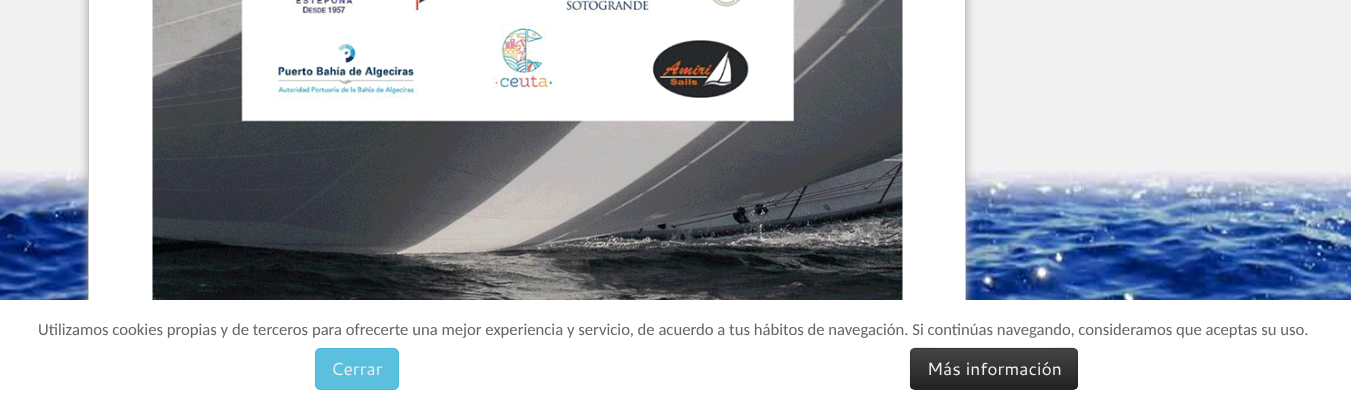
async function draw(canvas) {
  canvas.width = 1351
  canvas.height = 402
  const ctx = canvas.getContext('2d')
  ctx.miterLimit = 4
  ctx.fontKerning = 'normal'
  async function loadImage(src) {
    const img = new Image()
    img.src = src
    await img.decode()
    return img
  }
  let gradient

  ctx.fillStyle = '#f0f0f0'
  ctx.fillRect(0, 0, 1351, 402)
  ctx.drawImage(await loadImage('image0.png'), 0, 162, 1351, 138)
  ctx.fillStyle = '#adaaad'
  ctx.filter = 'blur(5px)'
  ctx.beginPath()
  ctx.roundRect(88, -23, 878, 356, 8)
  ctx.fill()
  ctx.filter = 'none'
  ctx.fillStyle = '#fff'
  ctx.fillRect(89, 0, 876, 300)
  ctx.strokeStyle = '#c5c5c5'
  ctx.strokeRect(88.5, -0.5, 877, 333)
  ctx.drawImage(await loadImage('image1.png'), 152, 0, 751, 300)
  ctx.fillRect(0, 300, 1351, 102)
  ctx.font = '16.67px Carlito'
  ctx.fillStyle = '#666'
  ctx.fillText('Utilizamos cookies propias y de terceros para ofrecerte una mejor experiencia y servicio, de acuerdo a tus hábitos de navegación. Si continúas navegando, consideramos que aceptas su uso.', 38, 335)
  ctx.fillStyle = '#5bc0de'
  ctx.beginPath()
  ctx.roundRect(315.5, 348.5, 83, 41, 4.5)
  ctx.fill()
  ctx.strokeStyle = '#46b8da'
  ctx.stroke()
  ctx.font = '17.5px Cantarell'
  ctx.fillStyle = '#eee'
  ctx.fillText('Cerrar', 331, 375)
  ctx.fillStyle = '#363636'
  ctx.beginPath()
  ctx.roundRect(910, 348, 168, 42, 5)
  ctx.fill()
  ctx.save()
  ctx.beginPath()
  ctx.roundRect(910, 348, 168, 42, 5)
  ctx.clip()
  gradient = ctx.createLinearGradient(994, 349, 994, 389)
  gradient.addColorStop(0, '#444')
  gradient.addColorStop(1, '#222')
  ctx.fillStyle = gradient
  ctx.fillRect(910, 349, 168, 40)
  ctx.restore()
  ctx.beginPath()
  ctx.moveTo(1075.5, 388)
  ctx.bezierCurveTo(1075, 389, 1073.5, 389.5, 1072.5, 389.5)
  ctx.lineTo(915, 389.5)
  ctx.bezierCurveTo(914, 389.5, 912.5, 389, 912, 388)
  ctx.strokeStyle = '#00000040'
  ctx.lineWidth = 1.2
  ctx.stroke()
  ctx.beginPath()
  ctx.moveTo(912, 388)
  ctx.bezierCurveTo(909, 385.5, 910.5, 377, 910.5, 374)
  ctx.bezierCurveTo(910.5, 341.5, 905.5, 348, 941, 348)
  ctx.lineTo(1046, 348)
  ctx.bezierCurveTo(1082, 348, 1077, 341.5, 1077, 374)
  ctx.bezierCurveTo(1077, 377, 1078.5, 385.5, 1075.5, 388)
  ctx.strokeStyle = '#0000001a'
  ctx.stroke()
  ctx.fillStyle = '#eee'
  ctx.fillText('Más información', 927, 375)
}

draw(document.querySelector('canvas'))
